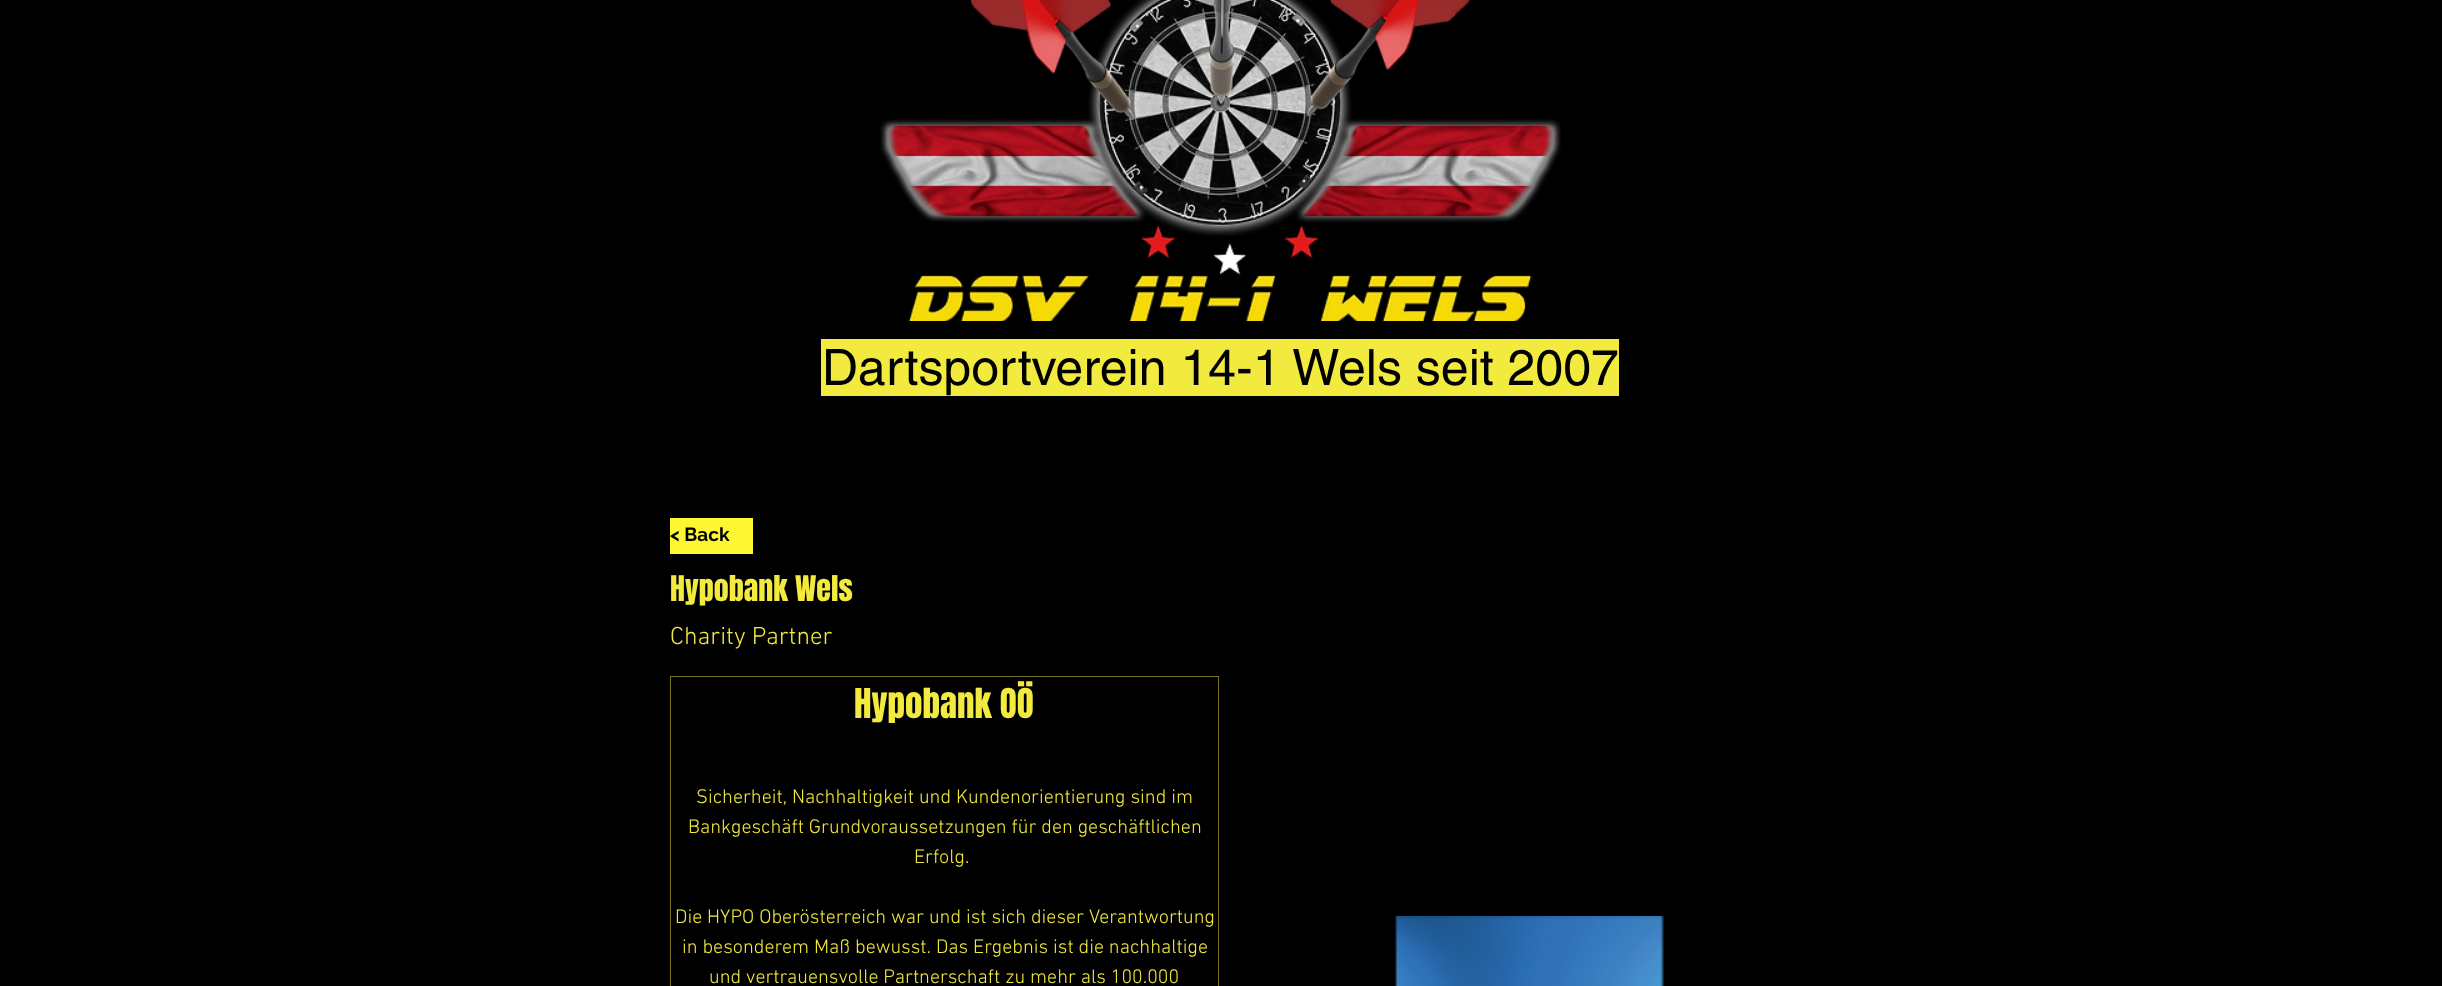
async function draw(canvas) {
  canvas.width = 2442
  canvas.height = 986
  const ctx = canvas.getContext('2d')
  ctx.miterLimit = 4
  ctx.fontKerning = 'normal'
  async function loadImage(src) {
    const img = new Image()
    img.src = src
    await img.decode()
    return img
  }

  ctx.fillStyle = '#000'
  ctx.fillRect(0, 0, 2442, 986)
  ctx.drawImage(await loadImage('image0.png'), 880, 0, 681, 321)
  ctx.fillStyle = '#f2ea3f'
  ctx.fillRect(821, 339, 798, 57)
  ctx.font = '50px helvetica'
  ctx.fillStyle = '#000'
  ctx.fillText('Dartsportverein 14-1 Wels seit 2007', 822, 385)
  ctx.fillStyle = '#fdf733'
  ctx.fillRect(670, 518, 83, 36)
  ctx.font = 'bold 19px Raleway'
  ctx.fillStyle = '#000'
  ctx.fillText('< Back', 670, 541)
  ctx.font = '30px Anton'
  ctx.fillStyle = '#f2ea3f'
  ctx.fillText('Hypobank Wels', 670, 601)
  ctx.font = '300 25px "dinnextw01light"'
  ctx.fillText('Charity Partner', 670, 644)
  ctx.strokeStyle = '#77731f'
  ctx.strokeRect(670.5, 676.5, 548, 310)
  ctx.font = '35px Anton'
  ctx.fillText('Hypobank OÖ', 854, 718)
  ctx.font = '300 20px "dinnextw01light"'
  ctx.fillText('Sicherheit, Nachhaltigkeit und Kundenorientierung sind im', 696, 803)
  ctx.fillText('Bankgeschäft Grundvoraussetzungen für den geschäftlichen', 688, 833)
  ctx.fillText('Erfolg.', 914, 863)
  ctx.fillText('Die HYPO Oberösterreich war und ist sich dieser Verantwortung', 675, 923)
  ctx.fillText('in besonderem Maß bewusst. Das Ergebnis ist die nachhaltige', 682, 953)
  ctx.fillText('und vertrauensvolle Partnerschaft zu mehr als 100.000', 709, 983)
  ctx.drawImage(await loadImage('image1.png'), 1395, 916, 269, 70)
}

draw(document.querySelector('canvas'))
